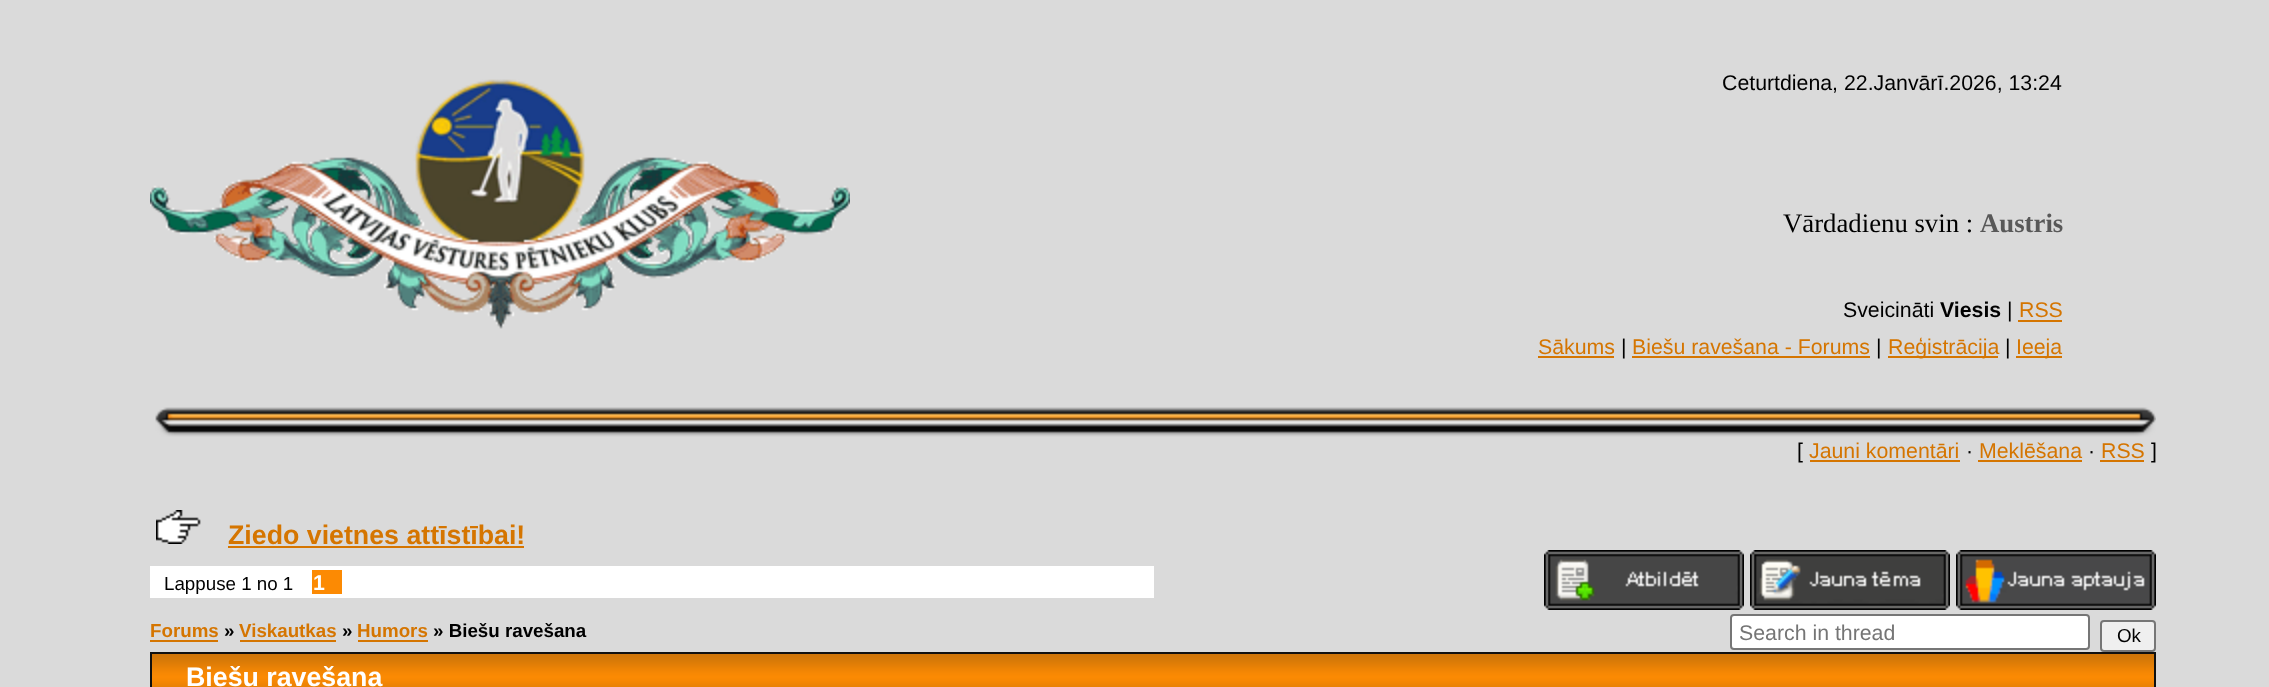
async function draw(canvas) {
  canvas.width = 2269
  canvas.height = 687
  const ctx = canvas.getContext('2d')
  ctx.miterLimit = 4
  ctx.fontKerning = 'normal'
  async function loadImage(src) {
    const img = new Image()
    img.src = src
    await img.decode()
    return img
  }

  ctx.fillStyle = '#dadada'
  ctx.fillRect(0, 0, 2269, 687)
  ctx.drawImage(await loadImage('image0.png'), 150, 79, 700, 250)
  ctx.font = '21.3px Liberation Sans'
  ctx.fillStyle = '#000'
  ctx.fillText('Ceturtdiena, 22.Janvārī.2026, 13:24', 1722, 90)
  ctx.font = '26.75px Liberation Serif'
  ctx.fillText('Vārdadienu svin :', 1783, 232)
  ctx.font = 'bold 26.75px Liberation Serif'
  ctx.fillStyle = '#585858'
  ctx.fillText('Austris', 1980, 232)
  ctx.font = '21.3px Liberation Sans'
  ctx.fillStyle = '#000'
  ctx.fillText('Sveicināti', 1843, 317)
  ctx.font = 'bold 21.3px Liberation Sans'
  ctx.fillText('Viesis', 1940, 317)
  ctx.font = '21.3px Liberation Sans'
  ctx.fillText('|', 2007, 317)
  ctx.fillStyle = '#d57500'
  ctx.fillText('RSS', 2019, 317)
  ctx.fillRect(2018, 320, 44, 2)
  ctx.fillText('Sākums', 1538, 354)
  ctx.fillRect(1538, 356, 76, 2)
  ctx.fillStyle = '#000'
  ctx.fillText('|', 1621, 354)
  ctx.fillStyle = '#d57500'
  ctx.fillText('Biešu ravešana - Forums', 1632, 354)
  ctx.fillRect(1632, 356, 238, 2)
  ctx.fillStyle = '#000'
  ctx.fillText('|', 1876, 354)
  ctx.fillStyle = '#d57500'
  ctx.fillRect(1888, 356, 110, 2)
  ctx.fillText('Reģistrācija', 1888, 354)
  ctx.fillStyle = '#000'
  ctx.fillText('|', 2005, 354)
  ctx.fillStyle = '#d57500'
  ctx.fillRect(2016, 356, 46, 2)
  ctx.fillText('Ieeja', 2016, 354)
  ctx.drawImage(await loadImage('image1.png'), 155, 407, 19, 30)
  ctx.drawImage(await loadImage('image2.png'), 174, 407, 1960, 30)
  ctx.drawImage(await loadImage('image3.png'), 2134, 407, 22, 30)
  ctx.fillStyle = '#000'
  ctx.fillText('[', 1797, 458)
  ctx.fillStyle = '#d57500'
  ctx.fillText('Jauni komentāri', 1809, 458)
  ctx.fillRect(1810, 460, 150, 2)
  ctx.fillStyle = '#000'
  ctx.fillText('·', 1966, 458)
  ctx.fillStyle = '#d57500'
  ctx.fillText('Meklēšana', 1979, 458)
  ctx.fillRect(1978, 460, 104, 2)
  ctx.fillStyle = '#000'
  ctx.fillText('·', 2088, 458)
  ctx.fillStyle = '#d57500'
  ctx.fillText('RSS', 2101, 458)
  ctx.fillRect(2100, 460, 44, 2)
  ctx.fillStyle = '#000'
  ctx.fillText(']', 2151, 458)
  ctx.drawImage(await loadImage('image4.png'), 156, 510, 45, 34)
  ctx.font = 'bold 26.75px Liberation Sans'
  ctx.fillStyle = '#d57500'
  ctx.fillText('Ziedo vietnes attīstībai!', 228, 544)
  ctx.fillRect(228, 546, 296, 2)
  ctx.fillStyle = '#fff'
  ctx.fillRect(150, 566, 1004, 32)
  ctx.font = '18.75px Liberation Sans'
  ctx.fillStyle = '#000'
  ctx.fillText('Lappuse 1 no 1', 164, 590)
  ctx.fillStyle = '#fc8a03'
  ctx.fillRect(312, 570, 30, 24)
  ctx.font = 'bold 21.3px Liberation Sans'
  ctx.fillStyle = '#fff'
  ctx.fillText('1', 313, 590)
  ctx.drawImage(await loadImage('image5.png'), 1544, 550, 200, 60)
  ctx.drawImage(await loadImage('image6.png'), 1750, 550, 200, 60)
  ctx.drawImage(await loadImage('image7.png'), 1956, 550, 200, 60)
  ctx.font = 'bold 18.75px Liberation Sans'
  ctx.fillStyle = '#d57500'
  ctx.fillText('Forums', 150, 637)
  ctx.fillRect(150, 640, 68, 2)
  ctx.fillStyle = '#000'
  ctx.fillText('»', 224, 637)
  ctx.fillStyle = '#d57500'
  ctx.fillText('Viskautkas', 239, 637)
  ctx.fillRect(240, 640, 96, 2)
  ctx.fillStyle = '#000'
  ctx.fillText('»', 342, 637)
  ctx.fillStyle = '#d57500'
  ctx.fillText('Humors', 357, 637)
  ctx.fillRect(358, 640, 70, 2)
  ctx.fillStyle = '#000'
  ctx.fillText('» Biešu ravešana', 433, 637)
  ctx.fillStyle = '#fff'
  ctx.beginPath()
  ctx.roundRect(1731, 615, 358, 34, 3)
  ctx.fill()
  ctx.strokeStyle = '#767676'
  ctx.lineWidth = 2
  ctx.stroke()
  ctx.font = '21.3px Liberation Sans'
  ctx.fillStyle = '#757575'
  ctx.fillText('Search in thread', 1739, 640)
  ctx.fillStyle = '#efefef'
  ctx.beginPath()
  ctx.roundRect(2101, 621, 54, 30, 3)
  ctx.fill()
  ctx.stroke()
  ctx.font = '18.75px Liberation Sans'
  ctx.fillStyle = '#000'
  ctx.fillText('Ok', 2117, 642)
  ctx.fillStyle = '#101010'
  ctx.fillRect(150, 652, 2006, 35)
  ctx.drawImage(await loadImage('image8.png'), 152, 654, 2002, 33)
  ctx.font = 'bold 26.75px Liberation Sans'
  ctx.fillStyle = '#fff'
  ctx.fillText('Biešu ravešana', 186, 686)
}

draw(document.querySelector('canvas'))
